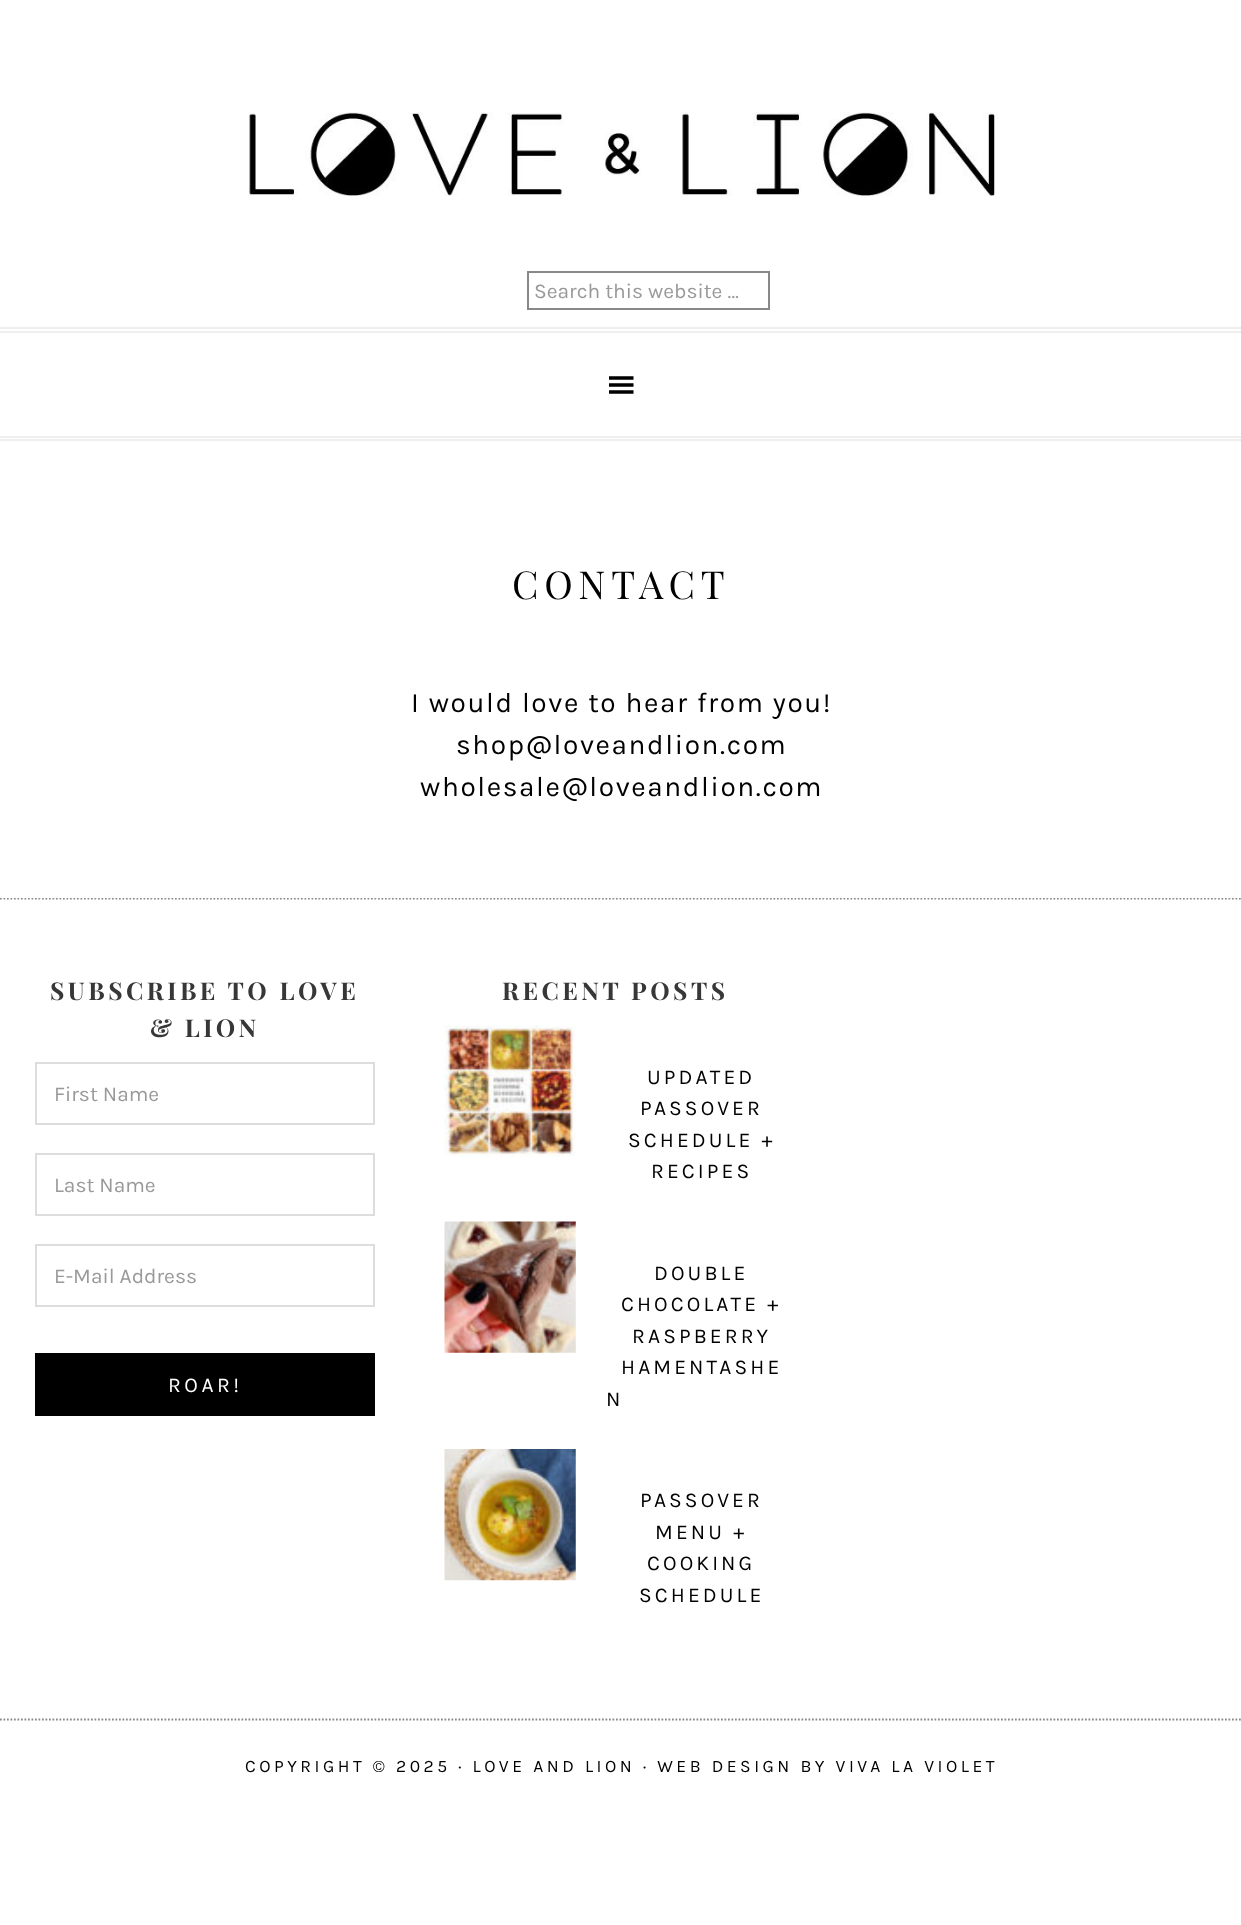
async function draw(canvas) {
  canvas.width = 1241
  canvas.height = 1925
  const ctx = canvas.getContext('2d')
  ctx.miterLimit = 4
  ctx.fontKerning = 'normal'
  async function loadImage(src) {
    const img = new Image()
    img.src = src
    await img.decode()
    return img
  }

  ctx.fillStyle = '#fff'
  ctx.fillRect(0, 0, 1241, 1925)
  ctx.drawImage(await loadImage('image0.png'), 248, 112, 749, 84)
  ctx.strokeStyle = '#888'
  ctx.lineWidth = 2
  ctx.strokeRect(528, 272, 241, 37)
  ctx.font = '21px Karla'
  ctx.fillStyle = '#999'
  ctx.fillText('Search this website …', 534, 298)
  ctx.fillStyle = '#eee'
  ctx.fillRect(0, 327, 1241, 2)
  ctx.fillRect(0, 331, 1241, 2)
  ctx.fillRect(0, 436, 1241, 2)
  ctx.fillRect(0, 439, 1241, 2)
  ctx.drawImage(await loadImage('image1.png'), 609, 376, 25, 18)
  ctx.beginPath()
  ctx.moveTo(0, 898.5)
  ctx.lineTo(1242.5, 898.5)
  ctx.lineWidth = 1.8
  ctx.setLineDash([1.75, 1.75])
  ctx.stroke()
  ctx.fillStyle = '#fff'
  ctx.fillRect(0, 897, 1241, 1)
  ctx.letterSpacing = '5.75px'
  ctx.font = '38.5px Playfair Display'
  ctx.fillStyle = '#000'
  ctx.fillText('CONTACT', 512, 599)
  ctx.letterSpacing = '1.6px'
  ctx.font = '28px Karla'
  ctx.fillText('I would love to hear from you!', 411, 712)
  ctx.fillText('shop@loveandlion.com', 456, 754)
  ctx.fillText('wholesale@loveandlion.com', 420, 796)
  ctx.letterSpacing = '3.5px'
  ctx.font = 'bold 24.5px Playfair Display'
  ctx.fillStyle = '#373737'
  ctx.fillText('SUBSCRIBE TO LOVE', 50, 1000)
  ctx.fillText('& LION', 150, 1037)
  ctx.strokeStyle = '#ddd'
  ctx.lineWidth = 2
  ctx.setLineDash([])
  ctx.strokeRect(36, 1063, 338, 61)
  ctx.letterSpacing = '0px'
  ctx.font = '21px Karla'
  ctx.fillStyle = '#999'
  ctx.fillText('First Name', 54, 1101)
  ctx.strokeRect(36, 1154, 338, 61)
  ctx.fillText('Last Name', 54, 1192)
  ctx.strokeRect(36, 1245, 338, 61)
  ctx.fillText('E-Mail Address', 54, 1283)
  ctx.fillStyle = '#000'
  ctx.fillRect(35, 1353, 340, 63)
  ctx.letterSpacing = '3.5px'
  ctx.fillStyle = '#fff'
  ctx.fillText('ROAR!', 168, 1392)
  ctx.font = 'bold 24.5px Playfair Display'
  ctx.fillStyle = '#373737'
  ctx.fillText('RECENT POSTS', 502, 1000)
  ctx.drawImage(await loadImage('image2.png'), 444, 1025, 132, 132)
  ctx.letterSpacing = '3.1px'
  ctx.font = '21px Karla'
  ctx.fillStyle = '#000'
  ctx.fillText('UPDATED', 647, 1084)
  ctx.fillText('PASSOVER', 640, 1115)
  ctx.fillText('SCHEDULE +', 628, 1147)
  ctx.fillText('RECIPES', 651, 1178)
  ctx.drawImage(await loadImage('image3.png'), 444, 1221, 132, 132)
  ctx.fillText('DOUBLE', 654, 1280)
  ctx.fillText('CHOCOLATE +', 621, 1311)
  ctx.fillText('RASPBERRY', 632, 1343)
  ctx.fillText('HAMENTASHE', 621, 1374)
  ctx.fillText('N', 606, 1406)
  ctx.drawImage(await loadImage('image4.png'), 444, 1449, 132, 132)
  ctx.fillText('PASSOVER', 640, 1507)
  ctx.fillText('MENU +', 655, 1539)
  ctx.fillText('COOKING', 647, 1570)
  ctx.fillText('SCHEDULE', 639, 1602)
  ctx.beginPath()
  ctx.moveTo(0, 1719.5)
  ctx.lineTo(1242.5, 1719.5)
  ctx.strokeStyle = '#888'
  ctx.lineWidth = 1.8
  ctx.setLineDash([1.75, 1.75])
  ctx.stroke()
  ctx.letterSpacing = '3.5px'
  ctx.font = '17.5px Karla'
  ctx.fillText('COPYRIGHT © 2025 · LOVE AND LION · WEB DESIGN BY VIVA LA VIOLET', 245, 1772)
}

draw(document.querySelector('canvas'))
